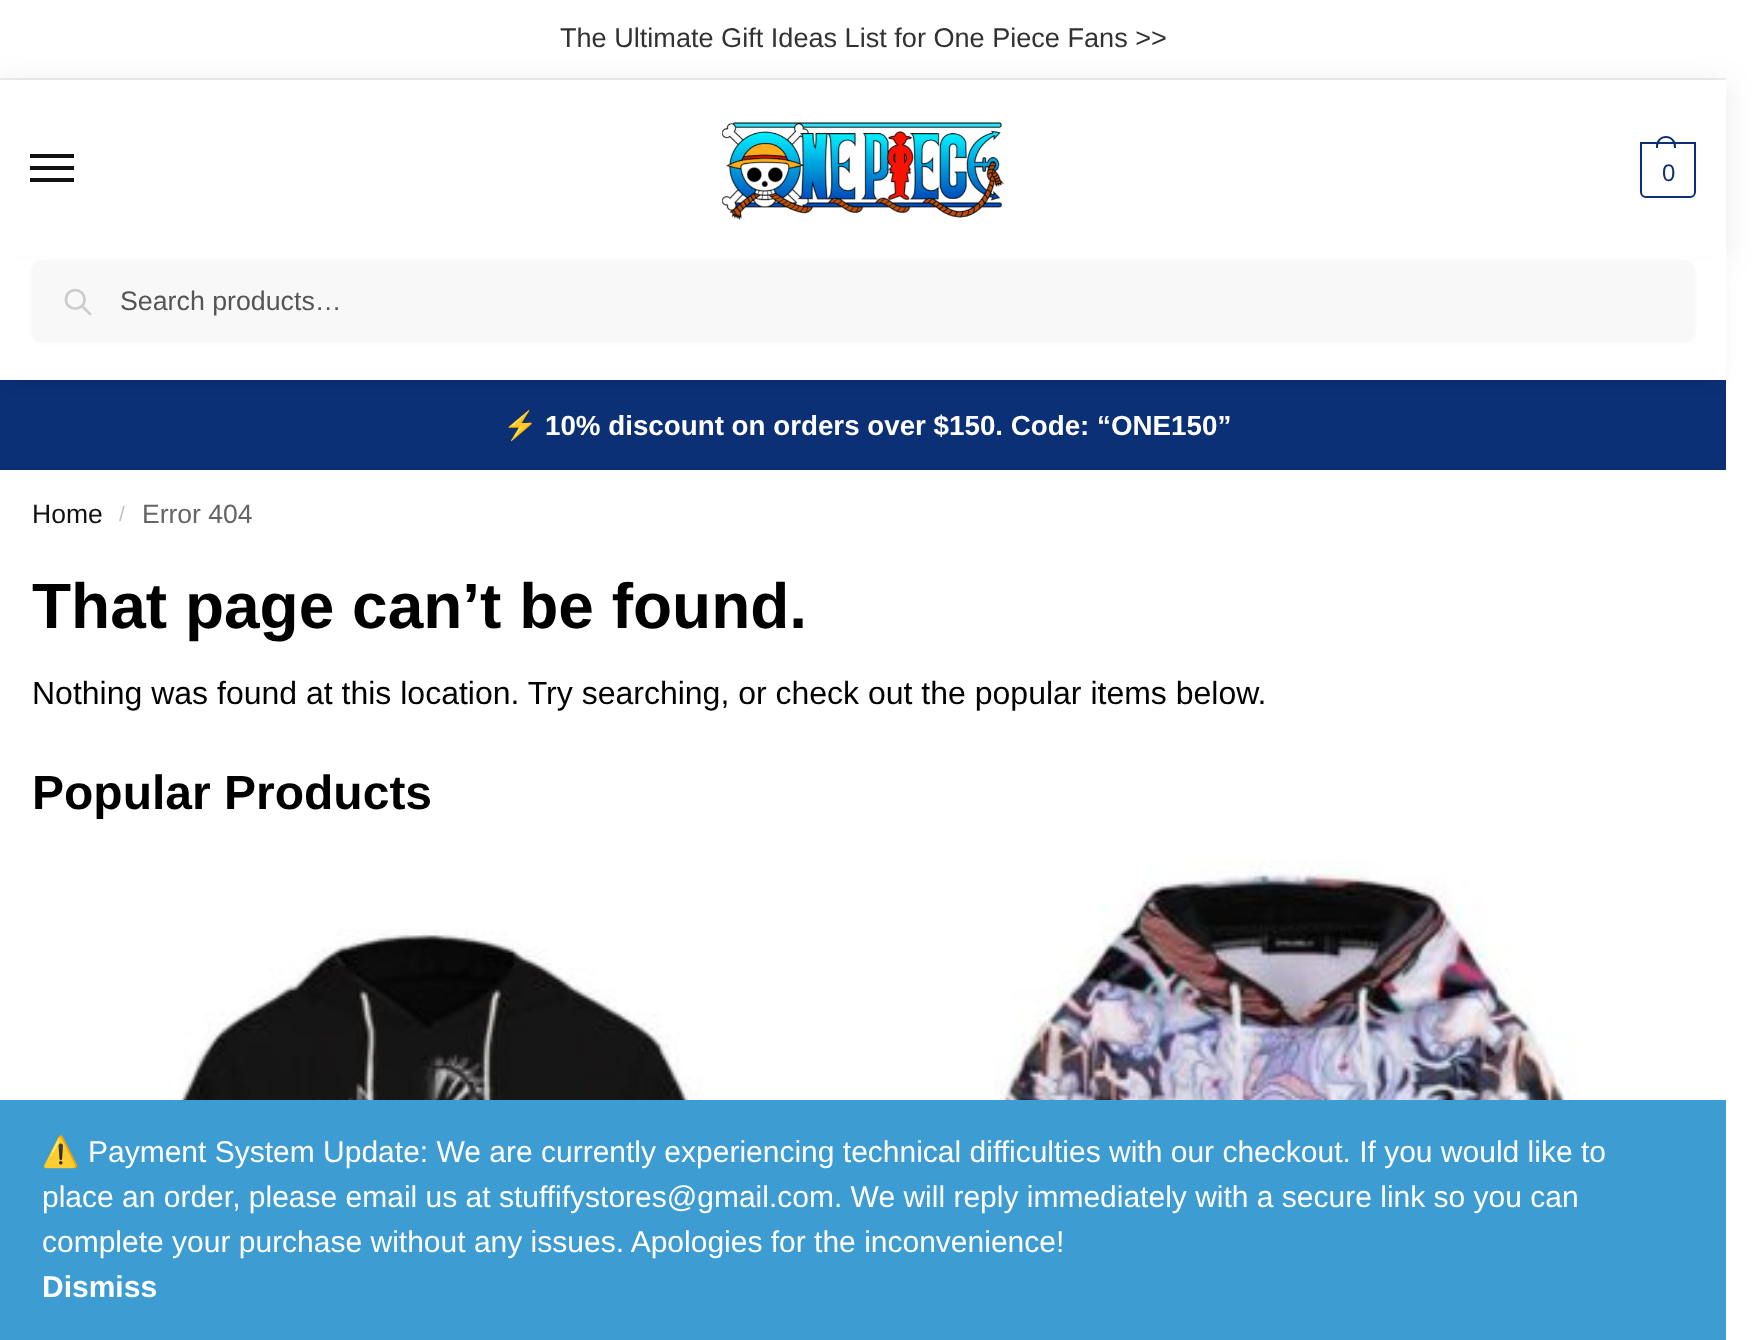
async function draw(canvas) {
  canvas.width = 1755
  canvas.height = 1340
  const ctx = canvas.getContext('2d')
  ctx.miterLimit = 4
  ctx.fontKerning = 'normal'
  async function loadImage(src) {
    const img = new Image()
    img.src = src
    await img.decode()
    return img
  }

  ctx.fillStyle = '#fff'
  ctx.fillRect(0, 0, 1755, 1340)
  ctx.fillStyle = '#eee'
  ctx.fillRect(0, 78, 1726, 2)
  ctx.font = '27.1px Liberation Sans'
  ctx.fillStyle = '#323232'
  ctx.fillText('The Ultimate Gift Ideas List for One Piece Fans >>', 560, 47)
  ctx.save()
  ctx.beginPath()
  ctx.moveTo(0, 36)
  ctx.lineTo(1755, 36)
  ctx.lineTo(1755, 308)
  ctx.lineTo(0, 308)
  ctx.closePath()
  ctx.moveTo(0, 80)
  ctx.lineTo(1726, 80)
  ctx.lineTo(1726, 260)
  ctx.lineTo(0, 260)
  ctx.closePath()
  ctx.clip('evenodd')
  ctx.fillStyle = '#00000014'
  ctx.filter = 'blur(15px)'
  ctx.beginPath()
  ctx.rect(0, 82, 1726, 180)
  ctx.fill()
  ctx.filter = 'none'
  ctx.restore()
  ctx.fillStyle = '#111'
  ctx.fillRect(30, 154, 44, 4)
  ctx.fillRect(30, 166, 44, 4)
  ctx.fillRect(30, 178, 44, 4)
  ctx.drawImage(await loadImage('image0.png'), 722, 122, 283, 98)
  ctx.beginPath()
  ctx.roundRect(1641, 143, 54, 54, [0, 0, 5, 5])
  ctx.strokeStyle = '#0b3075'
  ctx.lineWidth = 2
  ctx.stroke()
  ctx.fillStyle = '#0b3075'
  ctx.beginPath()
  ctx.moveTo(1666, 136)
  ctx.bezierCurveTo(1671.5, 136, 1676, 140.5, 1676, 146)
  ctx.lineTo(1676, 148)
  ctx.lineTo(1656, 148)
  ctx.lineTo(1656, 146)
  ctx.bezierCurveTo(1656, 140.5, 1660.5, 136, 1666, 136)
  ctx.closePath()
  ctx.moveTo(1666, 138)
  ctx.bezierCurveTo(1672, 138, 1674, 143, 1674, 148)
  ctx.lineTo(1658, 148)
  ctx.bezierCurveTo(1658, 143, 1660, 138, 1666, 138)
  ctx.closePath()
  ctx.fill('evenodd')
  ctx.letterSpacing = '-1px'
  ctx.font = '24px Liberation Sans'
  ctx.fillText('0', 1662, 181)
  ctx.fillRect(0, 380, 1726, 90)
  ctx.fillStyle = '#0000002e'
  ctx.filter = 'blur(10px)'
  ctx.beginPath()
  ctx.rect(10, 276, 1706, 100)
  ctx.fill()
  ctx.filter = 'none'
  ctx.fillStyle = '#fff'
  ctx.fillRect(0, 260, 1726, 120)
  ctx.fillStyle = '#0000000d'
  ctx.filter = 'blur(2px)'
  ctx.beginPath()
  ctx.roundRect(32, 262, 1662, 80, 10)
  ctx.fill()
  ctx.filter = 'none'
  ctx.fillStyle = '#f8f8f8'
  ctx.beginPath()
  ctx.roundRect(32, 260, 1662, 80, 10)
  ctx.fill()
  ctx.beginPath()
  ctx.moveTo(90, 314)
  ctx.lineTo(82, 306)
  ctx.moveTo(84.5, 299.5)
  ctx.bezierCurveTo(84.5, 311.5, 66, 311.5, 66, 299.5)
  ctx.bezierCurveTo(66, 287, 84.5, 287, 84.5, 299.5)
  ctx.closePath()
  ctx.strokeStyle = '#ccc'
  ctx.lineWidth = 2.7
  ctx.lineCap = 'round'
  ctx.lineJoin = 'round'
  ctx.stroke()
  ctx.letterSpacing = '0px'
  ctx.font = '26.75px Liberation Sans'
  ctx.fillStyle = '#555'
  ctx.fillText('Search products…', 120, 310)
  ctx.font = 'bold 27.75px Noto Color Emoji'
  ctx.fillStyle = '#fff'
  ctx.fillText('⚡', 503, 435)
  ctx.font = 'bold 27.75px Liberation Sans'
  ctx.fillText('10% discount on orders over $150. Code: “ONE150”', 545, 435)
  ctx.font = '26.5px Liberation Sans'
  ctx.fillStyle = '#111'
  ctx.fillText('Home', 32, 523)
  ctx.font = '21px Liberation Sans'
  ctx.fillStyle = '#c2c2c2'
  ctx.fillText('/', 119, 521)
  ctx.font = '26.5px Liberation Sans'
  ctx.fillStyle = '#666'
  ctx.fillText('Error 404', 142, 523)
  ctx.font = 'bold 64px Liberation Sans'
  ctx.fillStyle = '#000'
  ctx.fillText('That page can’t be found.', 32, 628)
  ctx.font = '32px Liberation Sans'
  ctx.fillText('Nothing was found at this location. Try searching, or check out the popular items below.', 32, 704)
  ctx.font = 'bold 48px Liberation Sans'
  ctx.fillText('Popular Products', 32, 809)
  ctx.drawImage(await loadImage('image1.png'), 100, 929, 671, 171)
  ctx.drawImage(await loadImage('image2.png'), 970, 860, 628, 240)
  ctx.fillStyle = '#3d9cd2'
  ctx.fillRect(0, 1100, 1726, 240)
  ctx.font = '30px Noto Color Emoji'
  ctx.fillStyle = '#fff'
  ctx.fillText('⚠️', 42, 1162)
  ctx.font = '30px Liberation Sans'
  ctx.fillText('Payment System Update: We are currently experiencing technical difficulties with our checkout. If you would like to', 88, 1162)
  ctx.fillText('place an order, please email us at stuffifystores@gmail.com. We will reply immediately with a secure link so you can', 42, 1207)
  ctx.fillText('complete your purchase without any issues. Apologies for the inconvenience!', 42, 1252)
  ctx.font = 'bold 30px Liberation Sans'
  ctx.fillText('Dismiss', 42, 1297)
}

draw(document.querySelector('canvas'))
